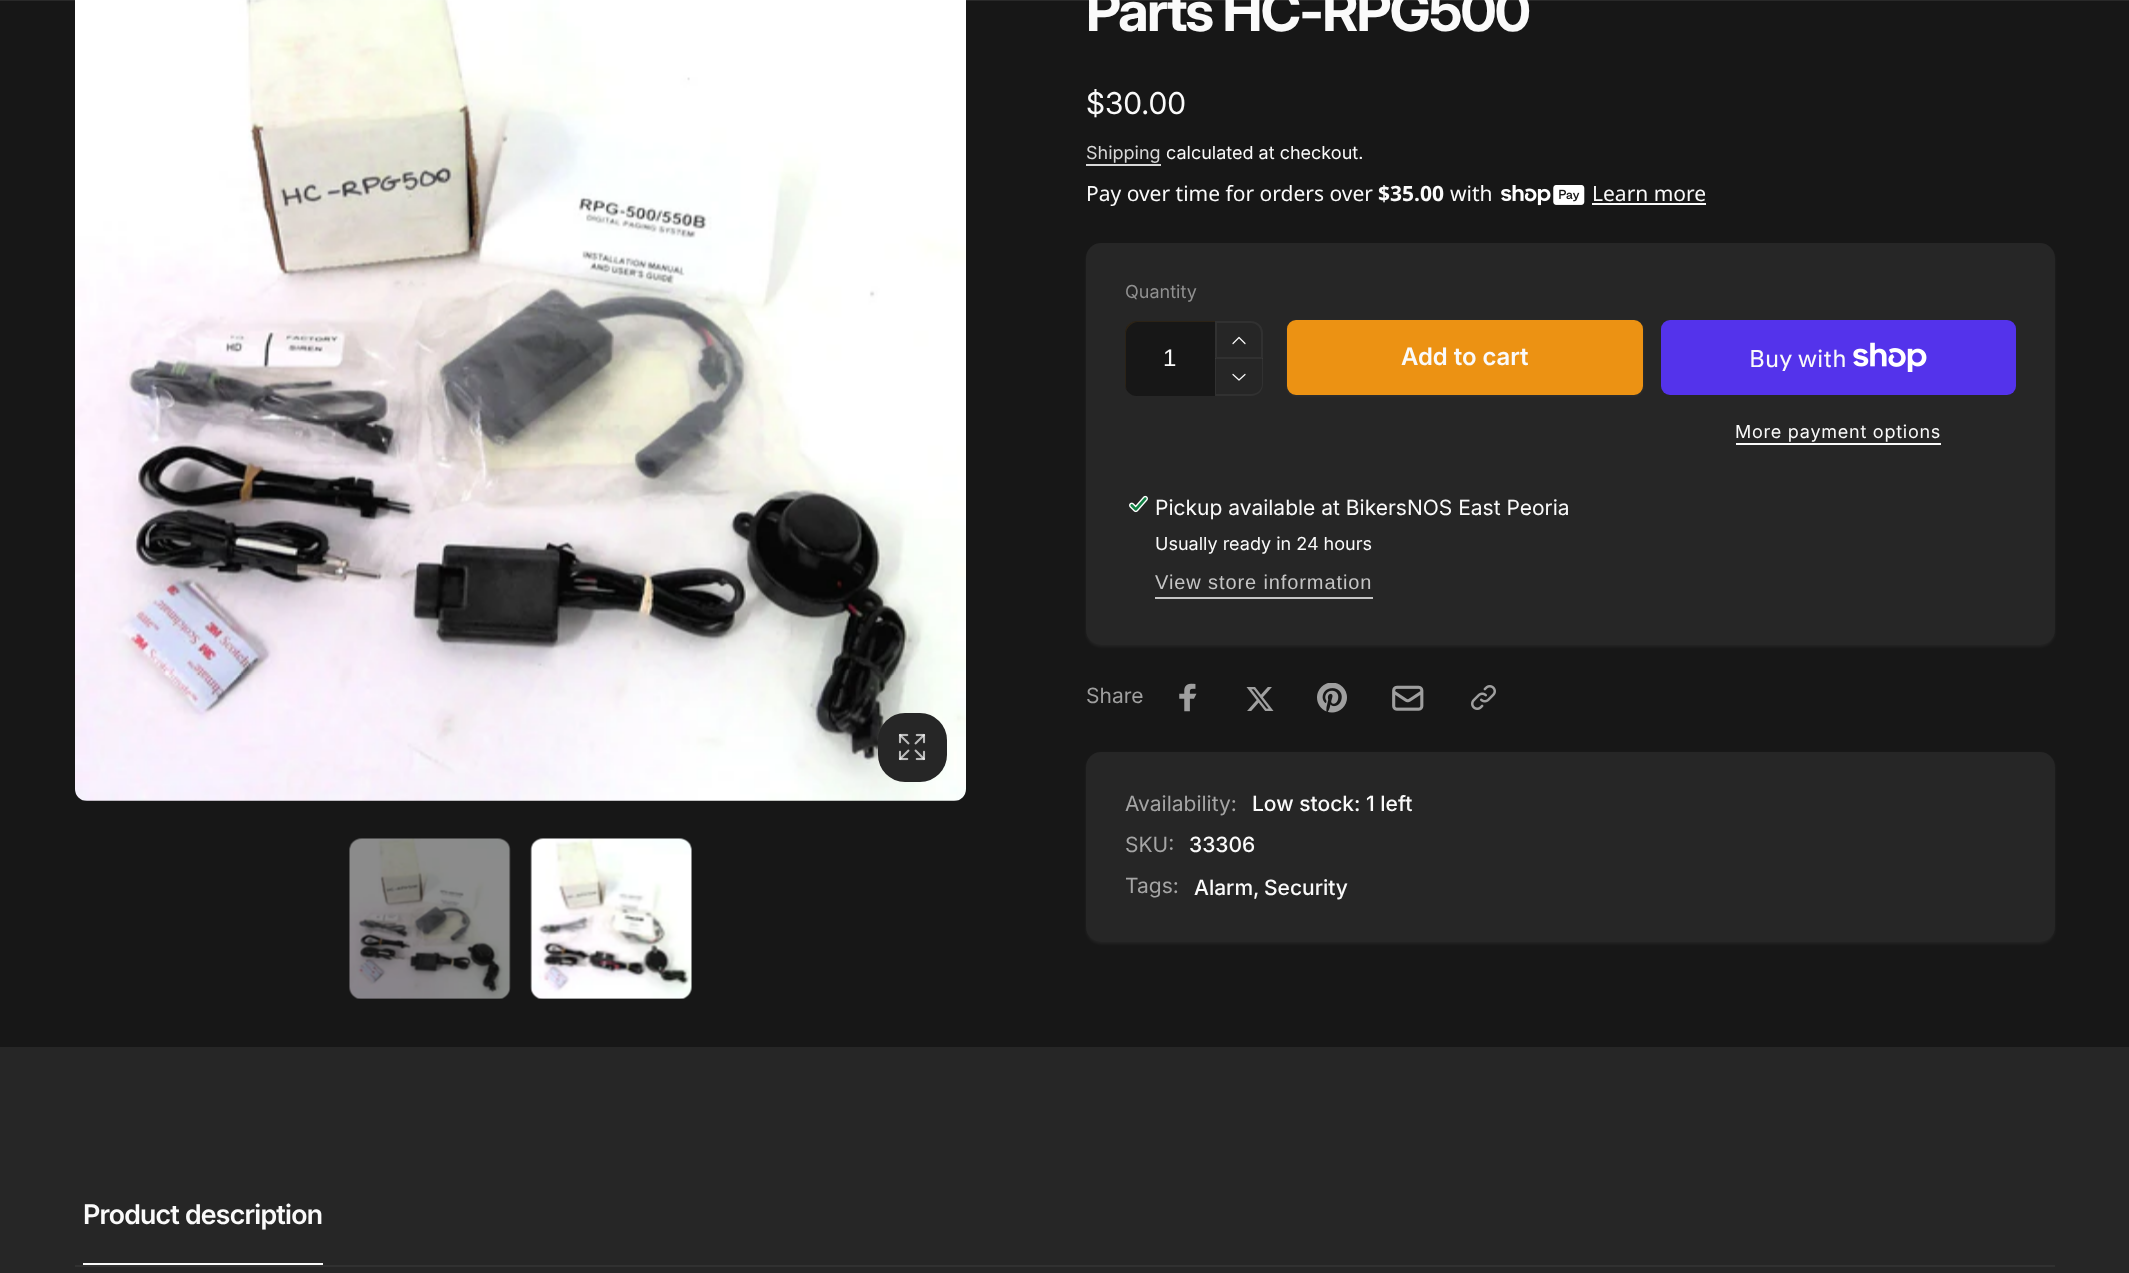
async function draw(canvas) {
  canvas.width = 2129
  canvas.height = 1273
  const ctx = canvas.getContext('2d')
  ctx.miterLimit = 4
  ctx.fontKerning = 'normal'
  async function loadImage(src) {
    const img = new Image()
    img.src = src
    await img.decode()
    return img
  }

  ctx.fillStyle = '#262626'
  ctx.fillRect(0, 0, 2129, 1273)
  ctx.fillStyle = '#171717'
  ctx.fillRect(0, 0, 2129, 1047)
  ctx.drawImage(await loadImage('image0.png'), 75, 0, 891, 801)
  ctx.fillStyle = '#fafafa14'
  ctx.fillRect(0, 0, 2129, 1)
  ctx.fillStyle = '#fafafa0f'
  ctx.filter = 'blur(1.5px)'
  ctx.beginPath()
  ctx.roundRect(878, 714, 69, 69, 27)
  ctx.fill()
  ctx.filter = 'none'
  ctx.fillStyle = '#fafafa1a'
  ctx.filter = 'blur(2px)'
  ctx.beginPath()
  ctx.roundRect(878, 714, 69, 69, 27)
  ctx.fill()
  ctx.filter = 'none'
  ctx.fillStyle = '#262626'
  ctx.beginPath()
  ctx.roundRect(878, 713, 69, 69, 27)
  ctx.fill()
  ctx.drawImage(await loadImage('image1.png'), 898, 733, 28, 28)
  ctx.drawImage(await loadImage('image2.png'), 349, 838, 162, 161)
  ctx.drawImage(await loadImage('image3.png'), 530, 838, 162, 161)
  ctx.letterSpacing = '-1.75px'
  ctx.font = 'bold 55.5px Inter'
  ctx.fillStyle = '#fafafa'
  ctx.fillText('Parts HC-RPG500', 1086, 31)
  ctx.letterSpacing = '0px'
  ctx.font = '30px Inter'
  ctx.fillText('$30.00', 1086, 114)
  ctx.font = '18px "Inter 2"'
  ctx.fillStyle = '#d8d8d8'
  ctx.fillText('Shipping', 1086, 159)
  ctx.fillRect(1086, 164, 75, 2)
  ctx.fillStyle = '#fafafa'
  ctx.fillText('calculated at checkout.', 1166, 159)
  ctx.font = '21px Noto Sans'
  ctx.fillText('Pay over time for orders over', 1086, 201)
  ctx.font = 'bold 21px Noto Sans'
  ctx.fillText('$35.00', 1378, 201)
  ctx.font = '21px Noto Sans'
  ctx.fillText('with', 1450, 201)
  ctx.drawImage(await loadImage('image4.png'), 1501, 185, 84, 21)
  ctx.fillText('Learn more', 1592, 201)
  ctx.fillRect(1592, 203, 114, 2)
  ctx.fillStyle = '#fafafa0d'
  ctx.filter = 'blur(1.5px)'
  ctx.beginPath()
  ctx.roundRect(1086, 245, 969, 402, 15)
  ctx.fill()
  ctx.filter = 'none'
  ctx.fillStyle = '#262626'
  ctx.beginPath()
  ctx.roundRect(1086, 243, 969, 402, 15)
  ctx.fill()
  ctx.font = '18px "Inter 2"'
  ctx.fillStyle = '#909090'
  ctx.fillText('Quantity', 1125, 298)
  ctx.fillStyle = '#171717'
  ctx.beginPath()
  ctx.roundRect(1125, 321, 90, 75, [12, 0, 0, 12])
  ctx.fill()
  ctx.fillStyle = '#ec92131a'
  ctx.beginPath()
  ctx.moveTo(1138, 322)
  ctx.lineTo(1215, 322)
  ctx.lineTo(1215, 321)
  ctx.lineTo(1137, 321)
  ctx.bezierCurveTo(1130, 321, 1125, 326, 1125, 333)
  ctx.lineTo(1125, 384)
  ctx.bezierCurveTo(1125, 387, 1126, 389, 1128, 391)
  ctx.bezierCurveTo(1127, 390, 1126, 388, 1126, 386)
  ctx.lineTo(1126, 334)
  ctx.bezierCurveTo(1126, 328, 1132, 322, 1138, 322)
  ctx.closePath()
  ctx.fill()
  ctx.font = '24px Liberation Sans'
  ctx.fillStyle = '#fafafa'
  ctx.fillText('1', 1163, 366)
  ctx.beginPath()
  ctx.roundRect(1216, 322, 46, 36, [0, 11, 0, 0])
  ctx.strokeStyle = '#313131'
  ctx.lineWidth = 2
  ctx.stroke()
  ctx.fillStyle = '#fafafa0d'
  ctx.beginPath()
  ctx.moveTo(1215, 358)
  ctx.lineTo(1263, 358)
  ctx.lineTo(1263, 384)
  ctx.bezierCurveTo(1263, 391, 1258, 396, 1251, 396)
  ctx.lineTo(1215, 396)
  ctx.closePath()
  ctx.moveTo(1216, 358)
  ctx.lineTo(1262, 358)
  ctx.lineTo(1262, 384)
  ctx.bezierCurveTo(1262, 390, 1257, 394, 1251, 394)
  ctx.lineTo(1216, 394)
  ctx.closePath()
  ctx.fill('evenodd')
  ctx.beginPath()
  ctx.moveTo(1245, 343.5)
  ctx.lineTo(1239, 337.5)
  ctx.lineTo(1233, 343.5)
  ctx.moveTo(1245, 374.5)
  ctx.lineTo(1239, 380)
  ctx.lineTo(1233, 374.5)
  ctx.strokeStyle = '#fafafa'
  ctx.lineWidth = 1.2
  ctx.lineCap = 'round'
  ctx.lineJoin = 'round'
  ctx.stroke()
  ctx.filter = 'blur(1.5px)'
  ctx.beginPath()
  ctx.roundRect(1287, 321, 356, 75, 9)
  ctx.fill()
  ctx.filter = 'none'
  ctx.fillStyle = '#ec9213'
  ctx.beginPath()
  ctx.roundRect(1288, 321, 354, 73, 8)
  ctx.fill()
  ctx.strokeStyle = '#ec9213'
  ctx.lineWidth = 2
  ctx.lineJoin = 'miter'
  ctx.stroke()
  ctx.font = '600 24px Inter'
  ctx.fillStyle = '#fafafa'
  ctx.fillText('Add to cart', 1401, 365)
  ctx.fillStyle = '#5433eb'
  ctx.beginPath()
  ctx.roundRect(1661, 320, 355, 75, 9)
  ctx.fill()
  ctx.font = '24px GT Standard'
  ctx.fillStyle = '#fafafa'
  ctx.fillText('Buy with', 1749, 367)
  ctx.drawImage(await loadImage('image5.png'), 1853, 342, 74, 30)
  ctx.letterSpacing = '0.75px'
  ctx.font = '18px "Inter 2"'
  ctx.fillText('More payment options', 1735, 438)
  ctx.fillRect(1736, 443, 205, 2)
  ctx.drawImage(await loadImage('image6.png'), 1129, 495, 19, 18)
  ctx.letterSpacing = '0px'
  ctx.font = '21px "Inter 2"'
  ctx.fillText('Pickup available at BikersNOS East Peoria', 1155, 515)
  ctx.font = '18px "Inter 2"'
  ctx.fillText('Usually ready in 24 hours', 1155, 550)
  ctx.letterSpacing = '0.9px'
  ctx.font = '20px Liberation Sans'
  ctx.fillStyle = '#c5c5c5'
  ctx.fillText('View store information', 1155, 589)
  ctx.fillRect(1155, 597, 218, 2)
  ctx.letterSpacing = '0px'
  ctx.font = '21px "Inter 2"'
  ctx.fillStyle = '#9f9f9f'
  ctx.fillText('Share', 1086, 703)
  ctx.drawImage(await loadImage('image7.png'), 1179, 683, 18, 29)
  ctx.drawImage(await loadImage('image8.png'), 1246, 687, 28, 24)
  ctx.drawImage(await loadImage('image9.png'), 1317, 683, 30, 30)
  ctx.drawImage(await loadImage('image10.png'), 1392, 685, 32, 26)
  ctx.drawImage(await loadImage('image11.png'), 1471, 685, 25, 25)
  ctx.fillStyle = '#fafafa0d'
  ctx.filter = 'blur(1.5px)'
  ctx.beginPath()
  ctx.roundRect(1086, 753, 969, 191, 15)
  ctx.fill()
  ctx.filter = 'none'
  ctx.fillStyle = '#262626'
  ctx.beginPath()
  ctx.roundRect(1086, 752, 969, 190, 15)
  ctx.fill()
  ctx.fillStyle = '#a5a5a5'
  ctx.fillText('Availability:', 1125, 811)
  ctx.font = '500 21px Inter'
  ctx.fillStyle = '#fafafa'
  ctx.fillText('Low stock: 1 left', 1252, 811)
  ctx.font = '21px "Inter 2"'
  ctx.fillStyle = '#a5a5a5'
  ctx.fillText('SKU:', 1125, 852)
  ctx.font = '500 21px Inter'
  ctx.fillStyle = '#fafafa'
  ctx.fillText('33306', 1189, 852)
  ctx.font = '21px "Inter 2"'
  ctx.fillStyle = '#a5a5a5'
  ctx.fillText('Tags:', 1125, 893)
  ctx.font = '500 21px Inter'
  ctx.fillStyle = '#fafafa'
  ctx.fillText('Alarm', 1194, 895)
  ctx.fillText(',', 1253, 895)
  ctx.fillText('Security', 1264, 895)
  ctx.fillStyle = '#313131'
  ctx.fillRect(75, 1265, 1980, 2)
  ctx.fillStyle = '#fafafa'
  ctx.fillRect(83, 1263, 240, 2)
  ctx.letterSpacing = '-0.75px'
  ctx.font = '600 27px "Inter 2"'
  ctx.fillText('Product description', 83, 1224)
}

draw(document.querySelector('canvas'))
